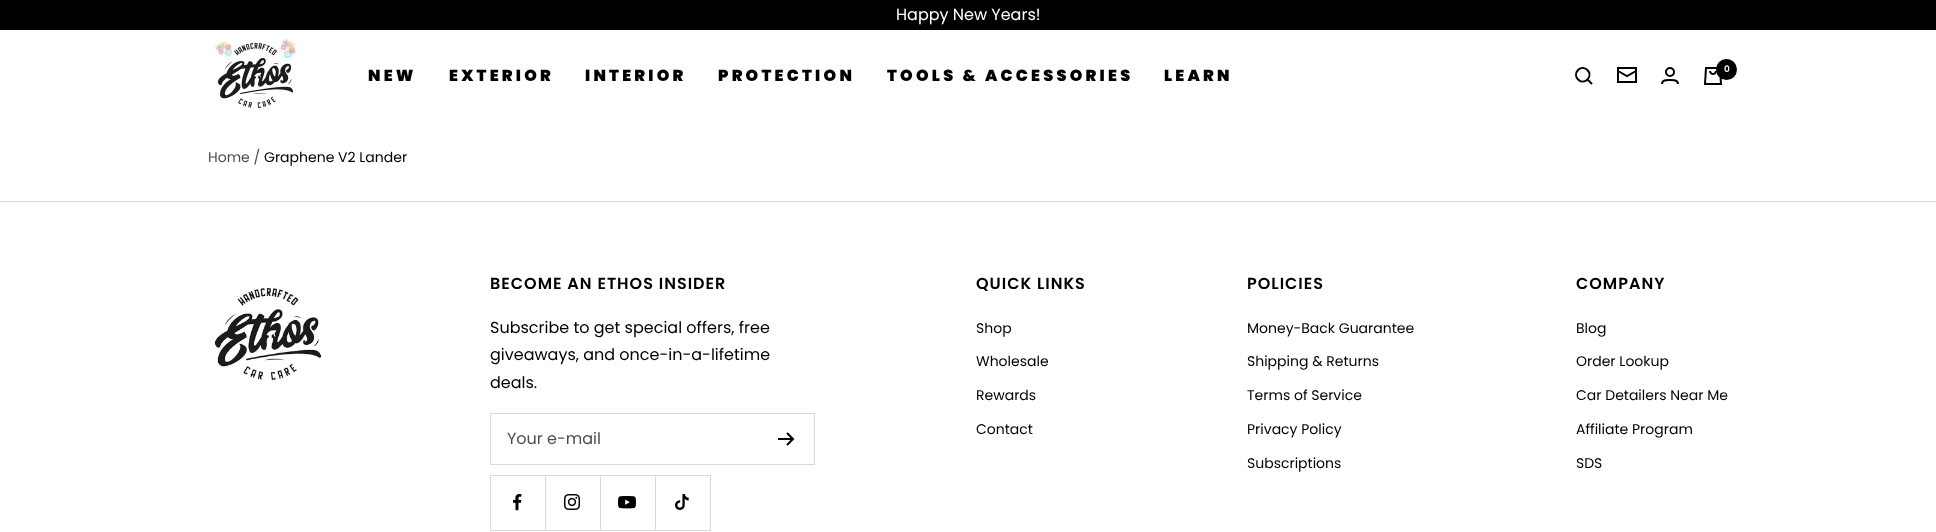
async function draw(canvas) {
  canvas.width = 1936
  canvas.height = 532
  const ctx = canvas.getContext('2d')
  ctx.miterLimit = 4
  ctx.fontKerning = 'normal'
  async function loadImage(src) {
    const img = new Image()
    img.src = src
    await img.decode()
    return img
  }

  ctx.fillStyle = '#fff'
  ctx.fillRect(0, 0, 1936, 532)
  ctx.fillStyle = '#000'
  ctx.fillRect(0, 0, 1936, 30)
  ctx.font = '16px Poppins'
  ctx.fillStyle = '#fff'
  ctx.fillText('Happy New Years!', 896, 20)
  ctx.drawImage(await loadImage('image0.png'), 215, 38, 82, 70)
  ctx.letterSpacing = '3.25px'
  ctx.font = '900 16px Poppins'
  ctx.fillStyle = '#000'
  ctx.fillText('NEW', 368, 81)
  ctx.fillText('EXTERIOR', 449, 81)
  ctx.fillText('INTERIOR', 585, 81)
  ctx.fillText('PROTECTION', 718, 81)
  ctx.fillText('TOOLS & ACCESSORIES', 887, 81)
  ctx.fillText('LEARN', 1164, 81)
  ctx.beginPath()
  ctx.moveTo(1587.5, 79.5)
  ctx.bezierCurveTo(1593.5, 73, 1584.5, 64, 1578, 70)
  ctx.bezierCurveTo(1572, 76.5, 1581, 85.5, 1587.5, 79.5)
  ctx.closePath()
  ctx.moveTo(1587.5, 79.5)
  ctx.lineTo(1592, 84)
  ctx.moveTo(1636, 71)
  ctx.lineTo(1627, 76)
  ctx.lineTo(1618, 71)
  ctx.moveTo(1618, 68)
  ctx.lineTo(1636, 68)
  ctx.lineTo(1636, 82)
  ctx.lineTo(1618, 82)
  ctx.closePath()
  ctx.strokeStyle = '#000'
  ctx.lineWidth = 2
  ctx.stroke()
  ctx.beginPath()
  ctx.arc(1670, 72, 4, 0, 2 * Math.PI)
  ctx.stroke()
  ctx.beginPath()
  ctx.moveTo(1662, 84)
  ctx.bezierCurveTo(1662, 79.5, 1667, 80, 1670, 80)
  ctx.bezierCurveTo(1673, 80, 1678, 79.5, 1678, 84)
  ctx.stroke()
  ctx.drawImage(await loadImage('image1.png'), 1703, 67, 20, 18)
  ctx.beginPath()
  ctx.arc(1726.5, 69.5, 10.5, 0, 2 * Math.PI)
  ctx.fill()
  ctx.letterSpacing = '0px'
  ctx.font = '600 9px Poppins'
  ctx.fillStyle = '#fff'
  ctx.fillText('0', 1724, 72)
  ctx.font = '14px Poppins'
  ctx.fillStyle = '#4d4d4d'
  ctx.fillText('Home /', 208, 162)
  ctx.fillStyle = '#000'
  ctx.fillText('Graphene V2 Lander', 264, 162)
  ctx.fillStyle = '#d9d9d9'
  ctx.fillRect(0, 201, 1936, 1)
  ctx.drawImage(await loadImage('image2.png'), 214, 287, 108, 93)
  ctx.letterSpacing = '1px'
  ctx.font = '600 16px Poppins'
  ctx.fillStyle = '#000'
  ctx.fillText('BECOME AN ETHOS INSIDER', 490, 289)
  ctx.letterSpacing = '0px'
  ctx.font = '16px Poppins'
  ctx.fillText('Subscribe to get special offers, free', 490, 333)
  ctx.fillText('giveaways, and once-in-a-lifetime', 490, 360)
  ctx.fillText('deals.', 490, 388)
  ctx.strokeStyle = '#d9d9d9'
  ctx.lineWidth = 1
  ctx.strokeRect(490.5, 413.5, 324, 51)
  ctx.fillStyle = '#4d4d4d'
  ctx.fillText('Your e-mail', 507, 444)
  ctx.beginPath()
  ctx.moveTo(778, 439)
  ctx.lineTo(793, 439)
  ctx.moveTo(787, 433)
  ctx.lineTo(793, 439)
  ctx.lineTo(787, 445)
  ctx.strokeStyle = '#000'
  ctx.lineWidth = 2
  ctx.stroke()
  ctx.fillStyle = '#d9d9d9'
  ctx.beginPath()
  ctx.moveTo(491, 530)
  ctx.lineTo(491, 531)
  ctx.lineTo(546, 531)
  ctx.lineTo(546, 476)
  ctx.lineTo(545, 476)
  ctx.lineTo(545, 530)
  ctx.closePath()
  ctx.fill()
  ctx.fillRect(490, 530, 1, 1)
  ctx.fillRect(490, 475, 56, 1)
  ctx.fillRect(490, 475, 1, 55)
  ctx.drawImage(await loadImage('image3.png'), 513, 494, 9, 17)
  ctx.beginPath()
  ctx.moveTo(546, 530)
  ctx.lineTo(546, 531)
  ctx.lineTo(601, 531)
  ctx.lineTo(601, 476)
  ctx.lineTo(600, 476)
  ctx.lineTo(600, 530)
  ctx.closePath()
  ctx.fill()
  ctx.fillRect(545, 475, 56, 1)
  ctx.drawImage(await loadImage('image4.png'), 564, 494, 16, 16)
  ctx.beginPath()
  ctx.moveTo(601, 530)
  ctx.lineTo(601, 531)
  ctx.lineTo(656, 531)
  ctx.lineTo(656, 476)
  ctx.lineTo(655, 476)
  ctx.lineTo(655, 530)
  ctx.closePath()
  ctx.fill()
  ctx.fillRect(600, 475, 56, 1)
  ctx.drawImage(await loadImage('image5.png'), 618, 496, 18, 13)
  ctx.beginPath()
  ctx.moveTo(656, 530)
  ctx.lineTo(656, 531)
  ctx.lineTo(711, 531)
  ctx.lineTo(711, 476)
  ctx.lineTo(710, 476)
  ctx.lineTo(710, 530)
  ctx.closePath()
  ctx.fill()
  ctx.fillRect(655, 475, 56, 1)
  ctx.drawImage(await loadImage('image6.png'), 675, 494, 14, 16)
  ctx.letterSpacing = '1px'
  ctx.font = '600 16px Poppins'
  ctx.fillStyle = '#000'
  ctx.fillText('QUICK LINKS', 976, 289)
  ctx.letterSpacing = '0px'
  ctx.font = '14px Poppins'
  ctx.fillText('Shop', 976, 333)
  ctx.fillText('Wholesale', 976, 366)
  ctx.fillText('Rewards', 976, 400)
  ctx.fillText('Contact', 976, 434)
  ctx.letterSpacing = '1px'
  ctx.font = '600 16px Poppins'
  ctx.fillText('POLICIES', 1247, 289)
  ctx.letterSpacing = '0px'
  ctx.font = '14px Poppins'
  ctx.fillText('Money-Back Guarantee', 1247, 333)
  ctx.fillText('Shipping & Returns', 1247, 366)
  ctx.fillText('Terms of Service', 1247, 400)
  ctx.fillText('Privacy Policy', 1247, 434)
  ctx.fillText('Subscriptions', 1247, 468)
  ctx.letterSpacing = '1px'
  ctx.font = '600 16px Poppins'
  ctx.fillText('COMPANY', 1576, 289)
  ctx.letterSpacing = '0px'
  ctx.font = '14px Poppins'
  ctx.fillText('Blog', 1576, 333)
  ctx.fillText('Order Lookup', 1576, 366)
  ctx.fillText('Car Detailers Near Me', 1576, 400)
  ctx.fillText('Affiliate Program', 1576, 434)
  ctx.fillText('SDS', 1576, 468)
}

draw(document.querySelector('canvas'))
